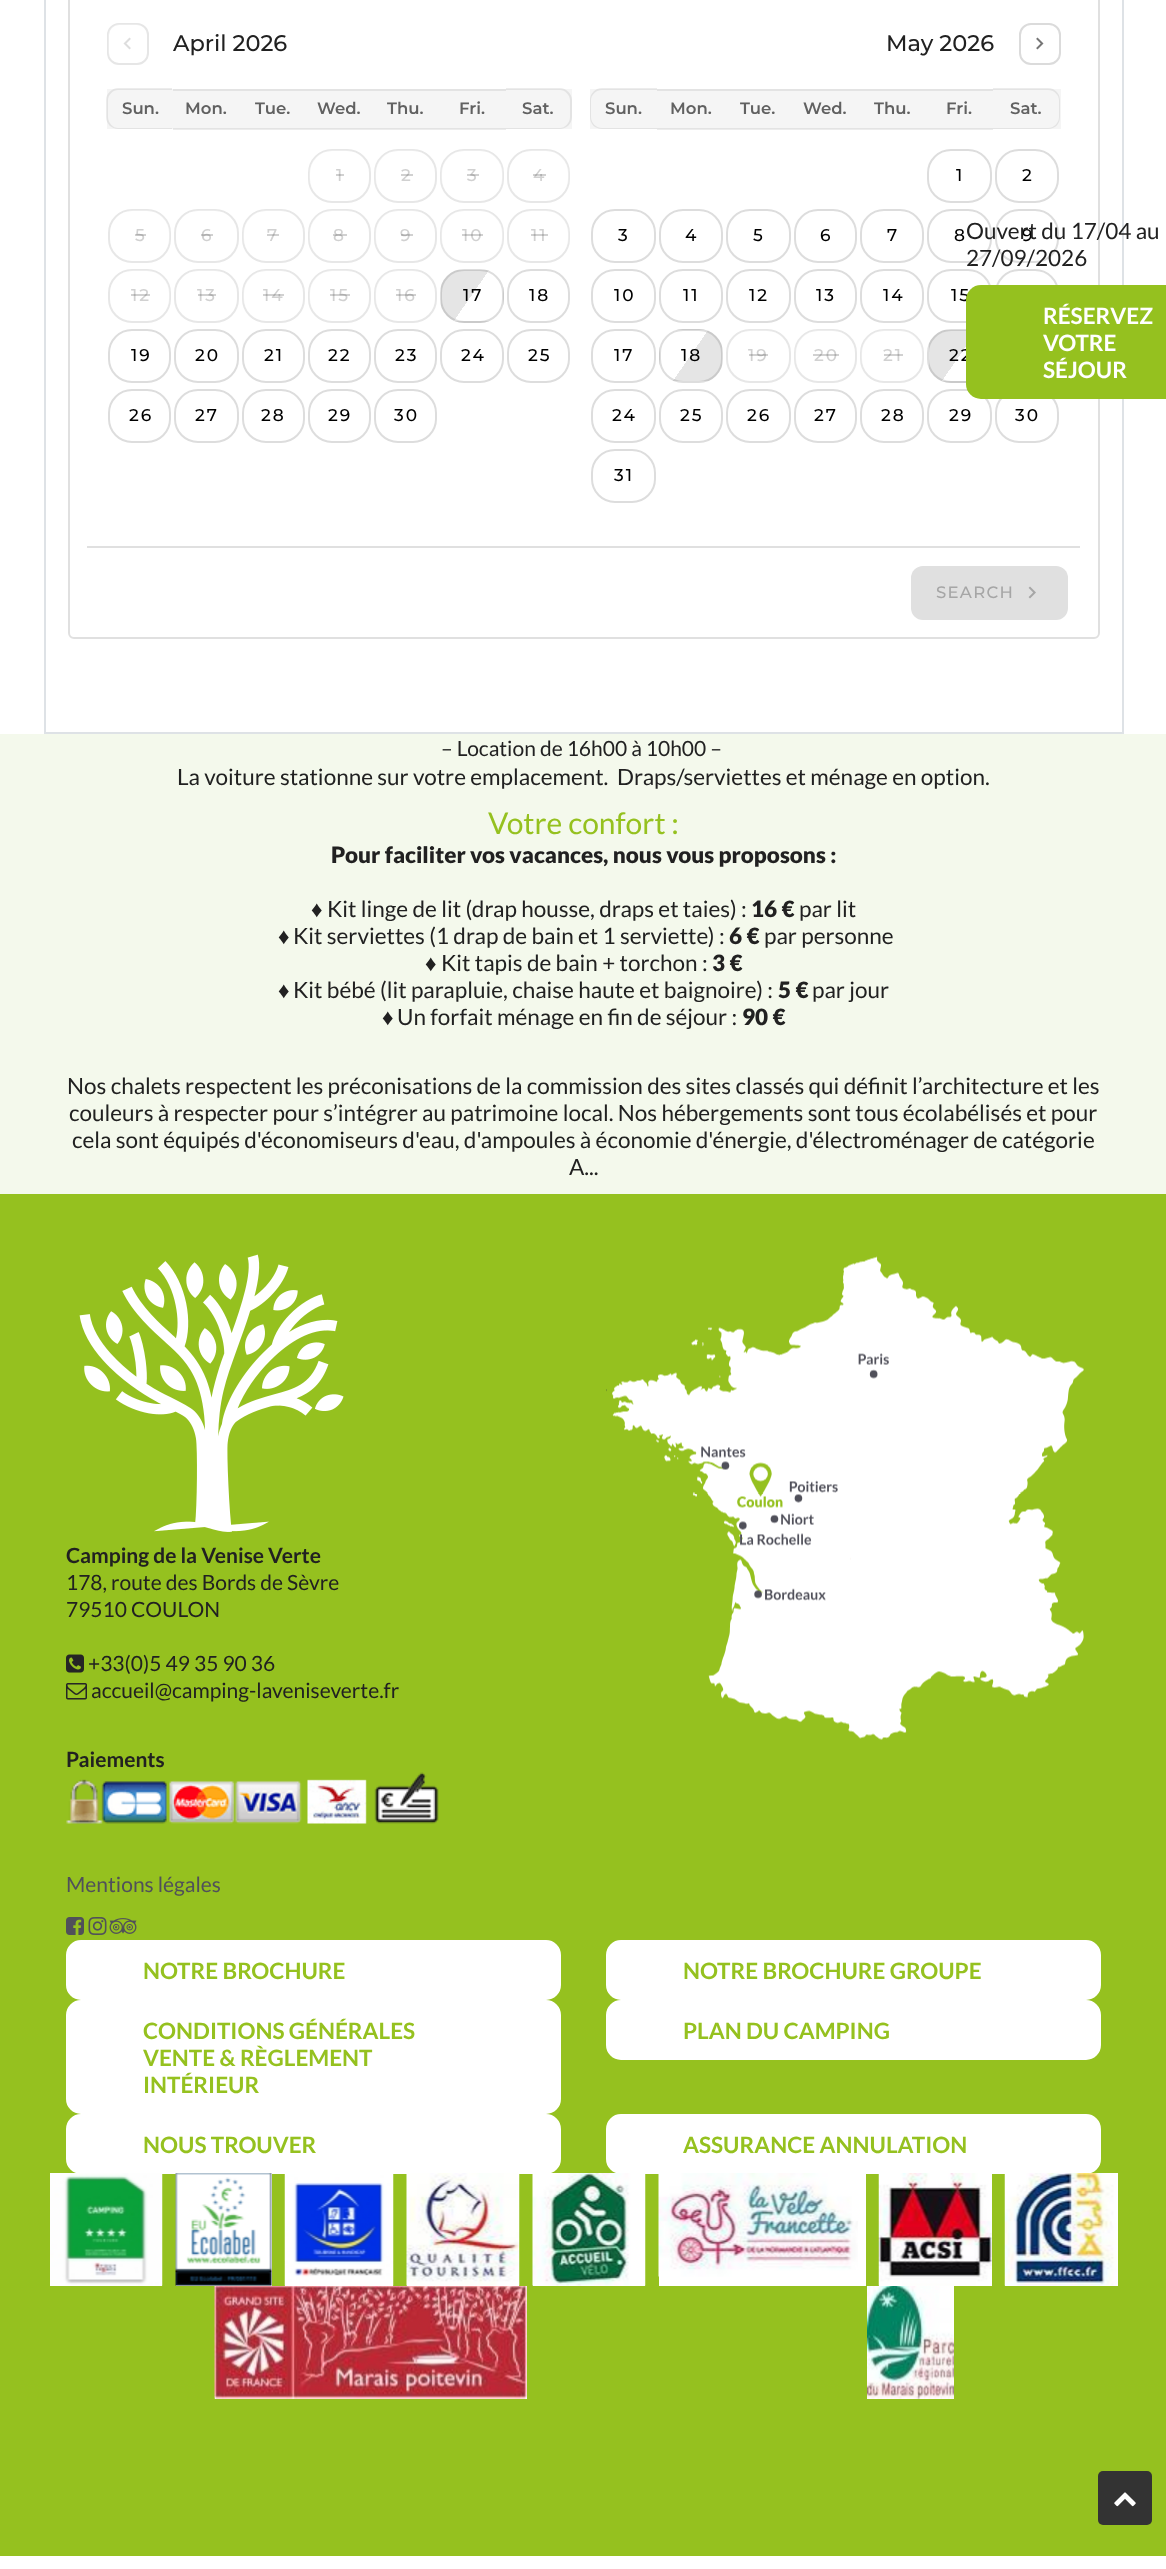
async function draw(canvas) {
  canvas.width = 1166
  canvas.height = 2569
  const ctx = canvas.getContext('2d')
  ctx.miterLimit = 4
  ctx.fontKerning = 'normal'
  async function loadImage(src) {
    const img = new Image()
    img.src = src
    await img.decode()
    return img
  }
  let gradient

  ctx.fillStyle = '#fff'
  ctx.fillRect(0, 0, 1166, 2569)
  ctx.strokeStyle = '#dee2e6'
  ctx.lineWidth = 2
  ctx.strokeRect(45, -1, 1078, 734)
  ctx.beginPath()
  ctx.roundRect(69, -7, 1030, 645, 5)
  ctx.strokeStyle = '#e0e0e0'
  ctx.stroke()
  ctx.beginPath()
  ctx.roundRect(108, 24, 40, 40, 11)
  ctx.strokeStyle = '#e6e6e6'
  ctx.stroke()
  ctx.fillStyle = '#ffffff42'
  ctx.beginPath()
  ctx.roundRect(108, 24, 39, 39, 12)
  ctx.fill()
  ctx.drawImage(await loadImage('image0.png'), 123, 37, 8, 13)
  ctx.beginPath()
  ctx.arc(128, 44, 15, 0, 2 * Math.PI)
  ctx.fill()
  ctx.font = '500 22.5px Montserrat'
  ctx.fillStyle = '#212121'
  ctx.fillText('April 2026', 173, 51)
  ctx.fillStyle = '#f5f5f5'
  ctx.fillRect(107, 89, 465, 40)
  ctx.fillStyle = '#80808026'
  ctx.beginPath()
  ctx.moveTo(118, 88)
  ctx.lineTo(172, 88)
  ctx.lineTo(172, 129)
  ctx.lineTo(118, 129)
  ctx.bezierCurveTo(112, 129, 106, 124, 106, 117)
  ctx.lineTo(106, 100)
  ctx.bezierCurveTo(106, 94, 112, 88, 118, 88)
  ctx.closePath()
  ctx.moveTo(118, 90)
  ctx.lineTo(172, 90)
  ctx.lineTo(172, 128)
  ctx.lineTo(118, 128)
  ctx.bezierCurveTo(113, 128, 108, 123, 108, 117)
  ctx.lineTo(108, 100)
  ctx.bezierCurveTo(108, 95, 113, 90, 118, 90)
  ctx.closePath()
  ctx.fill('evenodd')
  ctx.font = '600 16.5px Montserrat'
  ctx.fillStyle = '#616161'
  ctx.fillText('Sun.', 122, 114)
  ctx.fillStyle = '#e3e3e3'
  ctx.fillRect(173, 89, 333, 2)
  ctx.fillStyle = '#80808026'
  ctx.fillRect(173, 128, 67, 2)
  ctx.fillStyle = '#616161'
  ctx.fillText('Mon.', 185, 114)
  ctx.fillStyle = '#80808026'
  ctx.fillRect(240, 128, 66, 2)
  ctx.fillStyle = '#616161'
  ctx.fillText('Tue.', 255, 114)
  ctx.fillStyle = '#80808026'
  ctx.fillRect(306, 128, 66, 2)
  ctx.fillStyle = '#616161'
  ctx.fillText('Wed.', 317, 114)
  ctx.fillStyle = '#80808026'
  ctx.fillRect(372, 128, 66, 2)
  ctx.fillStyle = '#616161'
  ctx.fillText('Thu.', 387, 114)
  ctx.fillStyle = '#80808026'
  ctx.fillRect(438, 128, 68, 2)
  ctx.fillStyle = '#616161'
  ctx.fillText('Fri.', 459, 114)
  ctx.fillStyle = '#80808026'
  ctx.beginPath()
  ctx.moveTo(506, 88)
  ctx.lineTo(560, 88)
  ctx.bezierCurveTo(566, 88, 572, 94, 572, 100)
  ctx.lineTo(572, 117)
  ctx.bezierCurveTo(572, 124, 566, 129, 560, 129)
  ctx.lineTo(506, 129)
  ctx.closePath()
  ctx.moveTo(506, 90)
  ctx.lineTo(560, 90)
  ctx.bezierCurveTo(565, 90, 570, 95, 570, 100)
  ctx.lineTo(570, 117)
  ctx.bezierCurveTo(570, 123, 565, 128, 560, 128)
  ctx.lineTo(506, 128)
  ctx.closePath()
  ctx.fill('evenodd')
  ctx.fillStyle = '#616161'
  ctx.fillText('Sat.', 522, 114)
  ctx.beginPath()
  ctx.roundRect(309, 150, 61, 52, 23)
  ctx.strokeStyle = '#e7e7e7'
  ctx.stroke()
  ctx.fillStyle = '#ffffff42'
  ctx.beginPath()
  ctx.roundRect(309, 150, 60, 51, 24)
  ctx.fill()
  ctx.letterSpacing = '2px'
  ctx.font = '500 17px Montserrat'
  ctx.fillStyle = '#d1d1d1'
  ctx.fillText('1', 336, 181)
  ctx.fillStyle = '#4d4d4d42'
  ctx.fillRect(336, 174, 8, 2)
  ctx.beginPath()
  ctx.roundRect(375, 150, 61, 52, 23)
  ctx.stroke()
  ctx.fillStyle = '#ffffff42'
  ctx.beginPath()
  ctx.roundRect(375, 150, 60, 51, 24)
  ctx.fill()
  ctx.fillStyle = '#d1d1d1'
  ctx.fillText('2', 401, 181)
  ctx.fillStyle = '#4d4d4d42'
  ctx.fillRect(401, 174, 12, 2)
  ctx.beginPath()
  ctx.roundRect(441, 150, 62, 52, 23)
  ctx.stroke()
  ctx.fillStyle = '#ffffff42'
  ctx.beginPath()
  ctx.roundRect(441, 150, 62, 51, 24)
  ctx.fill()
  ctx.fillStyle = '#d1d1d1'
  ctx.fillText('3', 467, 181)
  ctx.fillStyle = '#4d4d4d42'
  ctx.fillRect(467, 174, 12, 2)
  ctx.beginPath()
  ctx.roundRect(508, 150, 61, 52, 23)
  ctx.stroke()
  ctx.fillStyle = '#ffffff42'
  ctx.beginPath()
  ctx.roundRect(509, 150, 60, 51, 24)
  ctx.fill()
  ctx.fillStyle = '#d1d1d1'
  ctx.fillText('4', 533, 181)
  ctx.fillStyle = '#4d4d4d42'
  ctx.fillRect(533, 174, 13, 2)
  ctx.beginPath()
  ctx.roundRect(109, 210, 61, 52, 23)
  ctx.stroke()
  ctx.fillStyle = '#ffffff42'
  ctx.beginPath()
  ctx.roundRect(110, 210, 60, 51, 24)
  ctx.fill()
  ctx.fillStyle = '#d1d1d1'
  ctx.fillText('5', 135, 241)
  ctx.fillStyle = '#4d4d4d42'
  ctx.fillRect(135, 234, 11, 2)
  ctx.beginPath()
  ctx.roundRect(175, 210, 63, 52, 23)
  ctx.stroke()
  ctx.fillStyle = '#ffffff42'
  ctx.beginPath()
  ctx.roundRect(176, 210, 61, 51, 24)
  ctx.fill()
  ctx.fillStyle = '#d1d1d1'
  ctx.fillText('6', 201, 241)
  ctx.fillStyle = '#4d4d4d42'
  ctx.fillRect(201, 234, 12, 2)
  ctx.beginPath()
  ctx.roundRect(243, 210, 61, 52, 23)
  ctx.stroke()
  ctx.fillStyle = '#ffffff42'
  ctx.beginPath()
  ctx.roundRect(243, 210, 60, 51, 24)
  ctx.fill()
  ctx.fillStyle = '#d1d1d1'
  ctx.fillText('7', 267, 241)
  ctx.fillStyle = '#4d4d4d42'
  ctx.fillRect(267, 234, 12, 2)
  ctx.beginPath()
  ctx.roundRect(309, 210, 61, 52, 23)
  ctx.stroke()
  ctx.fillStyle = '#ffffff42'
  ctx.beginPath()
  ctx.roundRect(309, 210, 60, 51, 24)
  ctx.fill()
  ctx.fillStyle = '#d1d1d1'
  ctx.fillText('8', 333, 241)
  ctx.fillStyle = '#4d4d4d42'
  ctx.fillRect(333, 234, 14, 2)
  ctx.beginPath()
  ctx.roundRect(375, 210, 61, 52, 23)
  ctx.stroke()
  ctx.fillStyle = '#ffffff42'
  ctx.beginPath()
  ctx.roundRect(375, 210, 60, 51, 24)
  ctx.fill()
  ctx.fillStyle = '#d1d1d1'
  ctx.fillText('9', 400, 241)
  ctx.fillStyle = '#4d4d4d42'
  ctx.fillRect(401, 234, 12, 2)
  ctx.beginPath()
  ctx.roundRect(441, 210, 62, 52, 23)
  ctx.stroke()
  ctx.fillStyle = '#ffffff42'
  ctx.beginPath()
  ctx.roundRect(441, 210, 62, 51, 24)
  ctx.fill()
  ctx.fillStyle = '#d1d1d1'
  ctx.fillText('10', 462, 241)
  ctx.fillStyle = '#4d4d4d42'
  ctx.fillRect(462, 234, 21, 2)
  ctx.beginPath()
  ctx.roundRect(508, 210, 61, 52, 23)
  ctx.stroke()
  ctx.fillStyle = '#ffffff42'
  ctx.beginPath()
  ctx.roundRect(509, 210, 60, 51, 24)
  ctx.fill()
  ctx.fillStyle = '#d1d1d1'
  ctx.fillText('11', 531, 241)
  ctx.fillStyle = '#4d4d4d42'
  ctx.fillRect(531, 234, 17, 2)
  ctx.beginPath()
  ctx.roundRect(109, 270, 61, 52, 23)
  ctx.stroke()
  ctx.fillStyle = '#ffffff42'
  ctx.beginPath()
  ctx.roundRect(110, 270, 60, 51, 24)
  ctx.fill()
  ctx.fillStyle = '#d1d1d1'
  ctx.fillText('12', 131, 301)
  ctx.fillStyle = '#4d4d4d42'
  ctx.fillRect(131, 294, 19, 2)
  ctx.beginPath()
  ctx.roundRect(175, 270, 63, 52, 23)
  ctx.stroke()
  ctx.fillStyle = '#ffffff42'
  ctx.beginPath()
  ctx.roundRect(176, 270, 61, 51, 24)
  ctx.fill()
  ctx.fillStyle = '#d1d1d1'
  ctx.fillText('13', 197, 301)
  ctx.fillStyle = '#4d4d4d42'
  ctx.fillRect(198, 294, 18, 2)
  ctx.beginPath()
  ctx.roundRect(243, 270, 61, 52, 23)
  ctx.stroke()
  ctx.fillStyle = '#ffffff42'
  ctx.beginPath()
  ctx.roundRect(243, 270, 60, 51, 24)
  ctx.fill()
  ctx.fillStyle = '#d1d1d1'
  ctx.fillText('14', 263, 301)
  ctx.fillStyle = '#4d4d4d42'
  ctx.fillRect(263, 294, 21, 2)
  ctx.beginPath()
  ctx.roundRect(309, 270, 61, 52, 23)
  ctx.stroke()
  ctx.fillStyle = '#ffffff42'
  ctx.beginPath()
  ctx.roundRect(309, 270, 60, 51, 24)
  ctx.fill()
  ctx.fillStyle = '#d1d1d1'
  ctx.fillText('15', 330, 301)
  ctx.fillStyle = '#4d4d4d42'
  ctx.fillRect(330, 294, 20, 2)
  ctx.beginPath()
  ctx.roundRect(375, 270, 61, 52, 23)
  ctx.stroke()
  ctx.fillStyle = '#ffffff42'
  ctx.beginPath()
  ctx.roundRect(375, 270, 60, 51, 24)
  ctx.fill()
  ctx.fillStyle = '#d1d1d1'
  ctx.fillText('16', 396, 301)
  ctx.fillStyle = '#4d4d4d42'
  ctx.fillRect(396, 294, 20, 2)
  ctx.save()
  ctx.beginPath()
  ctx.roundRect(440, 269, 64, 54, 24)
  ctx.clip()
  gradient = ctx.createLinearGradient(439, 273, 504, 318)
  gradient.addColorStop(0.5, '#e5e5e5')
  gradient.addColorStop(0.5, '#fff')
  ctx.fillStyle = gradient
  ctx.fillRect(441, 270, 62, 51)
  gradient = ctx.createLinearGradient(501, 273, 566, 318)
  gradient.addColorStop(0.5, '#e5e5e5')
  gradient.addColorStop(0.5, '#fff')
  ctx.fillStyle = gradient
  ctx.fillRect(503, 286, 1, 20)
  gradient = ctx.createLinearGradient(439, 324, 504, 369)
  gradient.addColorStop(0.5, '#e5e5e5')
  gradient.addColorStop(0.5, '#fff')
  ctx.fillStyle = gradient
  ctx.fillRect(454, 321, 36, 2)
  ctx.restore()
  ctx.beginPath()
  ctx.roundRect(441, 270, 62, 52, 23)
  ctx.strokeStyle = '#80808045'
  ctx.stroke()
  ctx.fillStyle = '#000'
  ctx.fillText('17', 463, 301)
  ctx.beginPath()
  ctx.roundRect(508, 270, 61, 52, 23)
  ctx.strokeStyle = '#ddd'
  ctx.stroke()
  ctx.fillText('18', 529, 301)
  ctx.beginPath()
  ctx.roundRect(109, 330, 61, 52, 23)
  ctx.stroke()
  ctx.fillText('19', 131, 361)
  ctx.beginPath()
  ctx.roundRect(175, 330, 63, 52, 23)
  ctx.stroke()
  ctx.fillText('20', 195, 361)
  ctx.beginPath()
  ctx.roundRect(243, 330, 61, 52, 23)
  ctx.stroke()
  ctx.fillText('21', 264, 361)
  ctx.beginPath()
  ctx.roundRect(309, 330, 61, 52, 23)
  ctx.stroke()
  ctx.fillText('22', 328, 361)
  ctx.beginPath()
  ctx.roundRect(375, 330, 61, 52, 23)
  ctx.stroke()
  ctx.fillText('23', 395, 361)
  ctx.beginPath()
  ctx.roundRect(441, 330, 62, 52, 23)
  ctx.stroke()
  ctx.fillText('24', 461, 361)
  ctx.beginPath()
  ctx.roundRect(508, 330, 61, 52, 23)
  ctx.stroke()
  ctx.fillText('25', 528, 361)
  ctx.beginPath()
  ctx.roundRect(109, 390, 61, 52, 23)
  ctx.stroke()
  ctx.fillText('26', 129, 421)
  ctx.beginPath()
  ctx.roundRect(175, 390, 63, 52, 23)
  ctx.stroke()
  ctx.fillText('27', 195, 421)
  ctx.beginPath()
  ctx.roundRect(243, 390, 61, 52, 23)
  ctx.stroke()
  ctx.fillText('28', 261, 421)
  ctx.beginPath()
  ctx.roundRect(309, 390, 61, 52, 23)
  ctx.stroke()
  ctx.fillText('29', 328, 421)
  ctx.beginPath()
  ctx.roundRect(375, 390, 61, 52, 23)
  ctx.stroke()
  ctx.fillText('30', 394, 421)
  ctx.letterSpacing = '0px'
  ctx.font = '500 22.5px Montserrat'
  ctx.fillStyle = '#212121'
  ctx.fillText('May 2026', 886, 51)
  ctx.beginPath()
  ctx.roundRect(1020, 24, 40, 40, 11)
  ctx.strokeStyle = '#dbdbdb'
  ctx.stroke()
  ctx.drawImage(await loadImage('image1.png'), 1036, 37, 8, 13)
  ctx.fillStyle = '#f5f5f5'
  ctx.fillRect(590, 89, 471, 40)
  ctx.fillStyle = '#80808026'
  ctx.beginPath()
  ctx.moveTo(602, 88)
  ctx.lineTo(657, 88)
  ctx.lineTo(657, 129)
  ctx.lineTo(602, 129)
  ctx.bezierCurveTo(595, 129, 590, 124, 590, 117)
  ctx.lineTo(590, 100)
  ctx.bezierCurveTo(590, 94, 595, 88, 602, 88)
  ctx.closePath()
  ctx.moveTo(602, 90)
  ctx.lineTo(657, 90)
  ctx.lineTo(657, 128)
  ctx.lineTo(602, 128)
  ctx.bezierCurveTo(596, 128, 591, 123, 591, 117)
  ctx.lineTo(591, 100)
  ctx.bezierCurveTo(591, 95, 596, 90, 602, 90)
  ctx.closePath()
  ctx.fill('evenodd')
  ctx.font = '600 16.5px Montserrat'
  ctx.fillStyle = '#616161'
  ctx.fillText('Sun.', 605, 114)
  ctx.fillStyle = '#e3e3e3'
  ctx.fillRect(657, 89, 336, 2)
  ctx.fillStyle = '#80808026'
  ctx.fillRect(657, 128, 68, 2)
  ctx.fillStyle = '#616161'
  ctx.fillText('Mon.', 670, 114)
  ctx.fillStyle = '#80808026'
  ctx.fillRect(725, 128, 67, 2)
  ctx.fillStyle = '#616161'
  ctx.fillText('Tue.', 740, 114)
  ctx.fillStyle = '#80808026'
  ctx.fillRect(792, 128, 66, 2)
  ctx.fillStyle = '#616161'
  ctx.fillText('Wed.', 803, 114)
  ctx.fillStyle = '#80808026'
  ctx.fillRect(858, 128, 68, 2)
  ctx.fillStyle = '#616161'
  ctx.fillText('Thu.', 874, 114)
  ctx.fillStyle = '#80808026'
  ctx.fillRect(926, 128, 67, 2)
  ctx.fillStyle = '#616161'
  ctx.fillText('Fri.', 946, 114)
  ctx.fillStyle = '#80808026'
  ctx.beginPath()
  ctx.moveTo(993, 88)
  ctx.lineTo(1048, 88)
  ctx.bezierCurveTo(1055, 88, 1060, 94, 1060, 100)
  ctx.lineTo(1060, 117)
  ctx.bezierCurveTo(1060, 124, 1055, 129, 1048, 129)
  ctx.lineTo(993, 129)
  ctx.closePath()
  ctx.moveTo(993, 90)
  ctx.lineTo(1048, 90)
  ctx.bezierCurveTo(1054, 90, 1059, 95, 1059, 100)
  ctx.lineTo(1059, 117)
  ctx.bezierCurveTo(1059, 123, 1054, 128, 1048, 128)
  ctx.lineTo(993, 128)
  ctx.closePath()
  ctx.fill('evenodd')
  ctx.fillStyle = '#616161'
  ctx.fillText('Sat.', 1010, 114)
  ctx.beginPath()
  ctx.roundRect(928, 150, 63, 52, 23)
  ctx.strokeStyle = '#ddd'
  ctx.stroke()
  ctx.letterSpacing = '2px'
  ctx.font = '500 17px Montserrat'
  ctx.fillStyle = '#000'
  ctx.fillText('1', 956, 181)
  ctx.beginPath()
  ctx.roundRect(996, 150, 62, 52, 23)
  ctx.stroke()
  ctx.fillText('2', 1022, 181)
  ctx.beginPath()
  ctx.roundRect(592, 210, 63, 52, 23)
  ctx.stroke()
  ctx.fillText('3', 618, 241)
  ctx.beginPath()
  ctx.roundRect(660, 210, 62, 52, 23)
  ctx.stroke()
  ctx.fillText('4', 685, 241)
  ctx.beginPath()
  ctx.roundRect(727, 210, 63, 52, 23)
  ctx.stroke()
  ctx.fillText('5', 753, 241)
  ctx.beginPath()
  ctx.roundRect(795, 210, 61, 52, 23)
  ctx.stroke()
  ctx.fillText('6', 820, 241)
  ctx.beginPath()
  ctx.roundRect(861, 210, 62, 52, 23)
  ctx.stroke()
  ctx.fillText('7', 887, 241)
  ctx.beginPath()
  ctx.roundRect(928, 210, 63, 52, 23)
  ctx.stroke()
  ctx.fillText('8', 954, 241)
  ctx.beginPath()
  ctx.roundRect(996, 210, 62, 52, 23)
  ctx.stroke()
  ctx.fillText('9', 1022, 241)
  ctx.beginPath()
  ctx.roundRect(592, 270, 63, 52, 23)
  ctx.stroke()
  ctx.fillText('10', 614, 301)
  ctx.beginPath()
  ctx.roundRect(660, 270, 62, 52, 23)
  ctx.stroke()
  ctx.fillText('11', 683, 301)
  ctx.beginPath()
  ctx.roundRect(727, 270, 63, 52, 23)
  ctx.stroke()
  ctx.fillText('12', 749, 301)
  ctx.beginPath()
  ctx.roundRect(795, 270, 61, 52, 23)
  ctx.stroke()
  ctx.fillText('13', 816, 301)
  ctx.beginPath()
  ctx.roundRect(861, 270, 62, 52, 23)
  ctx.stroke()
  ctx.fillText('14', 883, 301)
  ctx.beginPath()
  ctx.roundRect(928, 270, 63, 52, 23)
  ctx.stroke()
  ctx.fillText('15', 951, 301)
  ctx.beginPath()
  ctx.roundRect(996, 270, 62, 52, 23)
  ctx.stroke()
  ctx.beginPath()
  ctx.roundRect(592, 330, 63, 52, 23)
  ctx.stroke()
  ctx.fillText('17', 614, 361)
  ctx.save()
  ctx.beginPath()
  ctx.roundRect(659, 329, 64, 54, 24)
  ctx.clip()
  gradient = ctx.createLinearGradient(658, 282, 723, 327)
  gradient.addColorStop(0.5, '#fff')
  gradient.addColorStop(0.5, '#e5e5e5')
  ctx.fillStyle = gradient
  ctx.fillRect(676, 329, 30, 1)
  gradient = ctx.createLinearGradient(597, 333, 662, 378)
  gradient.addColorStop(0.5, '#fff')
  gradient.addColorStop(0.5, '#e5e5e5')
  ctx.fillStyle = gradient
  ctx.fillRect(659, 346, 1, 20)
  gradient = ctx.createLinearGradient(658, 333, 723, 378)
  gradient.addColorStop(0.5, '#fff')
  gradient.addColorStop(0.5, '#e5e5e5')
  ctx.fillStyle = gradient
  ctx.fillRect(660, 330, 62, 51)
  ctx.restore()
  ctx.beginPath()
  ctx.roundRect(660, 330, 62, 52, 23)
  ctx.strokeStyle = '#80808045'
  ctx.stroke()
  ctx.fillText('18', 681, 361)
  ctx.beginPath()
  ctx.roundRect(727, 330, 63, 52, 23)
  ctx.strokeStyle = '#e7e7e7'
  ctx.stroke()
  ctx.fillStyle = '#ffffff42'
  ctx.beginPath()
  ctx.roundRect(728, 330, 61, 51, 24)
  ctx.fill()
  ctx.fillStyle = '#d1d1d1'
  ctx.fillText('19', 748, 361)
  ctx.fillStyle = '#4d4d4d42'
  ctx.fillRect(749, 354, 19, 2)
  ctx.beginPath()
  ctx.roundRect(795, 330, 61, 52, 23)
  ctx.stroke()
  ctx.fillStyle = '#ffffff42'
  ctx.beginPath()
  ctx.roundRect(795, 330, 60, 51, 24)
  ctx.fill()
  ctx.fillStyle = '#d1d1d1'
  ctx.fillText('20', 814, 361)
  ctx.fillStyle = '#4d4d4d42'
  ctx.fillRect(813, 354, 26, 2)
  ctx.beginPath()
  ctx.roundRect(861, 330, 62, 52, 23)
  ctx.stroke()
  ctx.fillStyle = '#ffffff42'
  ctx.beginPath()
  ctx.roundRect(861, 330, 62, 51, 24)
  ctx.fill()
  ctx.fillStyle = '#d1d1d1'
  ctx.fillText('21', 883, 361)
  ctx.fillStyle = '#4d4d4d42'
  ctx.fillRect(884, 354, 19, 2)
  ctx.save()
  ctx.beginPath()
  ctx.roundRect(927, 329, 65, 54, 24)
  ctx.clip()
  gradient = ctx.createLinearGradient(927, 333, 992, 378)
  gradient.addColorStop(0.5, '#e5e5e5')
  gradient.addColorStop(0.5, '#fff')
  ctx.fillStyle = gradient
  ctx.fillRect(929, 330, 37, 51)
  gradient = ctx.createLinearGradient(927, 384, 992, 429)
  gradient.addColorStop(0.5, '#e5e5e5')
  gradient.addColorStop(0.5, '#fff')
  ctx.fillStyle = gradient
  ctx.fillRect(941, 381, 25, 2)
  ctx.restore()
  ctx.beginPath()
  ctx.roundRect(928, 330, 63, 52, 23)
  ctx.strokeStyle = '#80808045'
  ctx.stroke()
  ctx.fillStyle = '#000'
  ctx.fillText('22', 949, 361)
  ctx.beginPath()
  ctx.roundRect(592, 390, 63, 52, 23)
  ctx.strokeStyle = '#ddd'
  ctx.stroke()
  ctx.fillText('24', 612, 421)
  ctx.beginPath()
  ctx.roundRect(660, 390, 62, 52, 23)
  ctx.stroke()
  ctx.fillText('25', 680, 421)
  ctx.beginPath()
  ctx.roundRect(727, 390, 63, 52, 23)
  ctx.stroke()
  ctx.fillText('26', 747, 421)
  ctx.beginPath()
  ctx.roundRect(795, 390, 61, 52, 23)
  ctx.stroke()
  ctx.fillText('27', 814, 421)
  ctx.beginPath()
  ctx.roundRect(861, 390, 62, 52, 23)
  ctx.stroke()
  ctx.fillText('28', 881, 421)
  ctx.beginPath()
  ctx.roundRect(928, 390, 63, 52, 23)
  ctx.stroke()
  ctx.fillText('29', 949, 421)
  ctx.beginPath()
  ctx.roundRect(996, 390, 62, 52, 23)
  ctx.stroke()
  ctx.fillText('30', 1015, 421)
  ctx.beginPath()
  ctx.roundRect(592, 450, 63, 52, 23)
  ctx.stroke()
  ctx.fillText('31', 614, 481)
  ctx.fillStyle = '#e0e0e0'
  ctx.fillRect(87, 546, 993, 2)
  ctx.beginPath()
  ctx.roundRect(911, 566, 157, 54, 12)
  ctx.fill()
  ctx.letterSpacing = '1.25px'
  ctx.font = '500 16.5px Montserrat'
  ctx.fillStyle = '#a6a6a6'
  ctx.fillText('SEARCH', 936, 598)
  ctx.drawImage(await loadImage('image2.png'), 1028, 586, 8, 13)
  ctx.fillStyle = '#f4f9ec'
  ctx.fillRect(0, 734, 1166, 460)
  ctx.letterSpacing = '0px'
  ctx.font = '21px Lato'
  ctx.fillStyle = '#212121'
  ctx.fillText('– Location de 16h00 à 10h00 –', 441, 756)
  ctx.font = '22.5px Lato'
  ctx.fillText('La voiture stationne sur votre emplacement.  Draps/serviettes et ménage en option.', 177, 785)
  ctx.font = '30px Lato'
  ctx.fillStyle = '#95c11f'
  ctx.fillText('Votre confort :', 488, 834)
  ctx.font = '900 22.5px Lato'
  ctx.fillStyle = '#212121'
  ctx.fillText('Pour faciliter vos vacances, nous vous proposons :', 331, 863)
  ctx.font = '22.5px Liberation Sans'
  ctx.fillText('♦', 311, 917)
  ctx.font = '22.5px Lato'
  ctx.fillText('Kit linge de lit (drap housse, draps et taies) :', 327, 917)
  ctx.font = '900 22.5px Lato'
  ctx.fillText('16 €', 751, 917)
  ctx.font = '22.5px Lato'
  ctx.fillText('par lit', 799, 917)
  ctx.font = '22.5px Liberation Sans'
  ctx.fillText('♦', 278, 944)
  ctx.font = '22.5px Lato'
  ctx.fillText('Kit serviettes (1 drap de bain et 1 serviette) :', 293, 944)
  ctx.font = '900 22.5px Lato'
  ctx.fillText('6 €', 729, 944)
  ctx.font = '22.5px Lato'
  ctx.fillText('par personne', 764, 944)
  ctx.font = '22.5px Liberation Sans'
  ctx.fillText('♦', 425, 971)
  ctx.font = '22.5px Lato'
  ctx.fillText('Kit tapis de bain + torchon :', 441, 971)
  ctx.font = '900 22.5px Lato'
  ctx.fillText('3 €', 712, 971)
  ctx.font = 'bold 22.5px Liberation Sans'
  ctx.fillText('♦', 278, 998)
  ctx.font = '22.5px Lato'
  ctx.fillText('Kit bébé (lit parapluie, chaise haute et baignoire) :', 293, 998)
  ctx.font = '900 22.5px Lato'
  ctx.fillText('5 €', 778, 998)
  ctx.font = '22.5px Lato'
  ctx.fillText('par jour', 812, 998)
  ctx.font = '22.5px Liberation Sans'
  ctx.fillText('♦', 382, 1025)
  ctx.font = '22.5px Lato'
  ctx.fillText('Un forfait ménage en fin de séjour :', 397, 1025)
  ctx.font = '900 22.5px Lato'
  ctx.fillText('90 €', 742, 1025)
  ctx.font = '22.5px Lato'
  ctx.fillText('Nos chalets respectent les préconisations de la commission des sites classés qui définit l’architecture et les', 67, 1094)
  ctx.fillText('couleurs à respecter pour s’intégrer au patrimoine local. Nos hébergements sont tous écolabélisés et pour', 69, 1121)
  ctx.fillText('cela sont équipés d\'économiseurs d\'eau, d\'ampoules à économie d\'énergie, d\'électroménager de catégorie', 72, 1148)
  ctx.fillText('A...', 569, 1175)
  ctx.fillText('Ouvert du 17/04 au', 966, 239)
  ctx.fillText('27/09/2026', 966, 266)
  ctx.fillStyle = '#95c11f'
  ctx.beginPath()
  ctx.roundRect(966, 285, 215, 114, 15)
  ctx.fill()
  ctx.font = 'bold 22.5px Lato'
  ctx.fillStyle = '#fff'
  ctx.fillText('RÉSERVEZ', 1043, 324)
  ctx.fillText('VOTRE', 1043, 351)
  ctx.fillText('SÉJOUR', 1043, 378)
  ctx.fillStyle = '#95c11f'
  ctx.fillRect(0, 1194, 1166, 1362)
  ctx.drawImage(await loadImage('image3.png'), 79, 1254, 265, 278)
  ctx.font = 'bold 21px Lato'
  ctx.fillStyle = '#212121'
  ctx.fillText('Camping de la Venise Verte', 66, 1563)
  ctx.font = '21px Lato'
  ctx.fillText('178, route des Bords de Sèvre', 66, 1590)
  ctx.fillText('79510 COULON', 66, 1617)
  ctx.drawImage(await loadImage('image4.png'), 66, 1654, 18, 19)
  ctx.fillText('+33(0)5 49 35 90 36', 88, 1671)
  ctx.drawImage(await loadImage('image5.png'), 66, 1683, 21, 17)
  ctx.fillText('accueil@camping-laveniseverte.fr', 91, 1698)
  ctx.font = 'bold 21px Lato'
  ctx.fillText('Paiements', 66, 1767)
  ctx.drawImage(await loadImage('image6.png'), 66, 1772, 373, 52)
  ctx.font = '21px Lato'
  ctx.fillStyle = '#50505a'
  ctx.fillText('Mentions légales', 66, 1892)
  ctx.drawImage(await loadImage('image7.png'), 66, 1917, 18, 18)
  ctx.drawImage(await loadImage('image8.png'), 88, 1917, 19, 18)
  ctx.drawImage(await loadImage('image9.png'), 109, 1918, 28, 16)
  ctx.drawImage(await loadImage('image10.png'), 606, 1256, 478, 484)
  ctx.fillStyle = '#fff'
  ctx.beginPath()
  ctx.roundRect(67, 1941, 493, 58, 14)
  ctx.fill()
  ctx.strokeStyle = '#fff'
  ctx.stroke()
  ctx.font = 'bold 22.5px Lato'
  ctx.fillStyle = '#95c11f'
  ctx.fillText('NOTRE BROCHURE', 143, 1979)
  ctx.fillStyle = '#fff'
  ctx.beginPath()
  ctx.roundRect(607, 1941, 493, 58, 14)
  ctx.fill()
  ctx.stroke()
  ctx.fillStyle = '#95c11f'
  ctx.fillText('NOTRE BROCHURE GROUPE', 683, 1979)
  ctx.fillStyle = '#fff'
  ctx.beginPath()
  ctx.roundRect(67, 2001, 493, 112, 14)
  ctx.fill()
  ctx.stroke()
  ctx.fillStyle = '#95c11f'
  ctx.fillText('CONDITIONS GÉNÉRALES', 143, 2039)
  ctx.fillText('VENTE & RÈGLEMENT', 143, 2066)
  ctx.fillText('INTÉRIEUR', 143, 2093)
  ctx.fillStyle = '#fff'
  ctx.beginPath()
  ctx.roundRect(607, 2001, 493, 58, 14)
  ctx.fill()
  ctx.stroke()
  ctx.fillStyle = '#95c11f'
  ctx.fillText('PLAN DU CAMPING', 683, 2039)
  ctx.fillStyle = '#fff'
  ctx.beginPath()
  ctx.roundRect(67, 2115, 493, 58, 14)
  ctx.fill()
  ctx.stroke()
  ctx.fillStyle = '#95c11f'
  ctx.fillText('NOUS TROUVER', 143, 2153)
  ctx.fillStyle = '#fff'
  ctx.beginPath()
  ctx.roundRect(607, 2115, 493, 58, 14)
  ctx.fill()
  ctx.stroke()
  ctx.fillStyle = '#95c11f'
  ctx.fillText('ASSURANCE ANNULATION', 683, 2153)
  ctx.fillStyle = '#fff'
  ctx.fillRect(50, 2174, 112, 112)
  ctx.drawImage(await loadImage('image11.png'), 50, 2173, 113, 113)
  ctx.fillRect(176, 2174, 96, 112)
  ctx.drawImage(await loadImage('image12.png'), 175, 2173, 97, 113)
  ctx.fillRect(285, 2174, 108, 112)
  ctx.drawImage(await loadImage('image13.png'), 284, 2174, 110, 112)
  ctx.fillRect(407, 2174, 112, 112)
  ctx.drawImage(await loadImage('image14.png'), 406, 2173, 114, 113)
  ctx.fillRect(533, 2174, 112, 112)
  ctx.drawImage(await loadImage('image15.png'), 532, 2173, 114, 113)
  ctx.fillRect(659, 2174, 207, 112)
  ctx.drawImage(await loadImage('image16.png'), 658, 2173, 200, 104)
  ctx.fillRect(879, 2174, 113, 112)
  ctx.drawImage(await loadImage('image17.png'), 878, 2173, 114, 113)
  ctx.fillRect(1005, 2174, 113, 112)
  ctx.drawImage(await loadImage('image18.png'), 1004, 2173, 114, 113)
  ctx.fillRect(215, 2286, 312, 113)
  ctx.drawImage(await loadImage('image19.png'), 214, 2286, 313, 113)
  ctx.fillRect(867, 2397, 87, 2)
  ctx.drawImage(await loadImage('image20.png'), 867, 2286, 87, 113)
  ctx.fillStyle = '#333'
  ctx.beginPath()
  ctx.roundRect(1098, 2471, 54, 54, 5)
  ctx.fill()
  ctx.drawImage(await loadImage('image21.png'), 1114, 2492, 22, 15)
}

draw(document.querySelector('canvas'))
